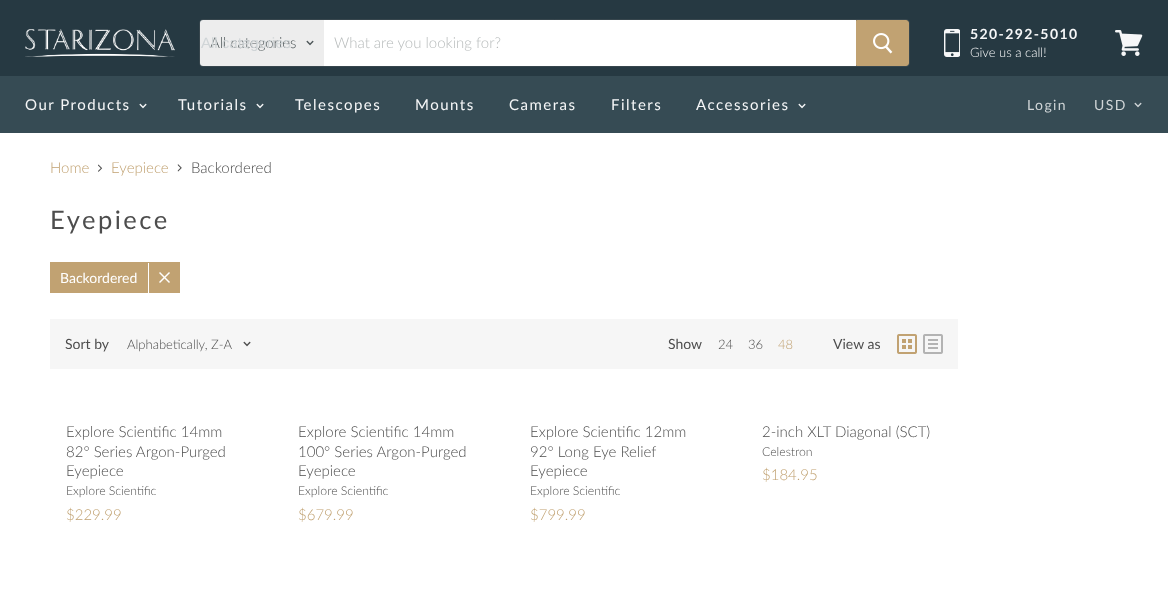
async function draw(canvas) {
  canvas.width = 1168
  canvas.height = 599
  const ctx = canvas.getContext('2d')
  ctx.miterLimit = 4
  ctx.fontKerning = 'normal'
  async function loadImage(src) {
    const img = new Image()
    img.src = src
    await img.decode()
    return img
  }

  ctx.fillStyle = '#fff'
  ctx.fillRect(0, 0, 1168, 599)
  ctx.fillStyle = '#263942'
  ctx.fillRect(0, 0, 1168, 76)
  ctx.drawImage(await loadImage('image0.png'), 25, 29, 150, 28)
  ctx.beginPath()
  ctx.roundRect(199.5, 19.5, 710, 47, 3.5)
  ctx.strokeStyle = '#7f7f7f33'
  ctx.stroke()
  ctx.fillStyle = '#ededed'
  ctx.beginPath()
  ctx.roundRect(200, 20, 124, 46, [3, 0, 0, 3])
  ctx.fill()
  ctx.font = '300 15px Lato'
  ctx.fillStyle = '#4b5456'
  ctx.fillText('All categories', 210, 48)
  ctx.font = '15px Liberation Sans'
  ctx.fillStyle = '#d0d5d7'
  ctx.fillText('All categories', 201, 48)
  ctx.drawImage(await loadImage('image1.png'), 306, 40, 8, 6)
  ctx.fillStyle = '#fff'
  ctx.fillRect(324, 20, 532, 46)
  ctx.font = '300 15px Lato'
  ctx.fillStyle = '#b7bbbb'
  ctx.fillText('What are you looking for?', 334, 48)
  ctx.fillStyle = '#c1a272'
  ctx.beginPath()
  ctx.roundRect(856.5, 20.5, 52, 45, [0, 2.5, 2.5, 0])
  ctx.fill()
  ctx.strokeStyle = '#c1a272'
  ctx.stroke()
  ctx.drawImage(await loadImage('image2.png'), 873, 33, 20, 21)
  ctx.drawImage(await loadImage('image3.png'), 944, 29, 16, 28)
  ctx.letterSpacing = '1.4px'
  ctx.font = 'bold 14px Lato'
  ctx.fillStyle = '#f6f7f8'
  ctx.fillText('520-292-5010', 970, 39)
  ctx.letterSpacing = '0px'
  ctx.font = '300 13px Lato'
  ctx.fillText('Give us a call!', 970, 57)
  ctx.drawImage(await loadImage('image4.png'), 1115, 30, 28, 26)
  ctx.fillStyle = '#364b54'
  ctx.fillRect(0, 76, 1168, 57)
  ctx.letterSpacing = '1.5px'
  ctx.font = '15px Lato'
  ctx.fillStyle = '#f6f7f8'
  ctx.fillText('Our Products', 25, 110)
  ctx.drawImage(await loadImage('image5.png'), 139, 103, 8, 6)
  ctx.fillText('Tutorials', 178, 110)
  ctx.drawImage(await loadImage('image5.png'), 256, 103, 8, 6)
  ctx.fillText('Telescopes', 295, 110)
  ctx.fillText('Mounts', 415, 110)
  ctx.fillText('Cameras', 509, 110)
  ctx.fillText('Filters', 611, 110)
  ctx.fillText('Accessories', 696, 110)
  ctx.drawImage(await loadImage('image5.png'), 798, 103, 8, 6)
  ctx.letterSpacing = '1.4px'
  ctx.font = '14px Lato'
  ctx.fillStyle = '#d0d5d7'
  ctx.fillText('Login', 1027, 110)
  ctx.fillText('USD', 1094, 110)
  ctx.drawImage(await loadImage('image6.png'), 1134, 102, 8, 6)
  ctx.letterSpacing = '0px'
  ctx.font = '300 15px Lato'
  ctx.fillStyle = '#c1a272'
  ctx.fillText('Home', 50, 173)
  ctx.drawImage(await loadImage('image7.png'), 98, 164, 5, 8)
  ctx.fillText('Eyepiece', 111, 173)
  ctx.drawImage(await loadImage('image8.png'), 177, 164, 5, 8)
  ctx.fillStyle = '#4d4d4d'
  ctx.fillText('Backordered', 191, 173)
  ctx.letterSpacing = '2.5px'
  ctx.font = '25.5px Lato'
  ctx.fillText('Eyepiece', 50, 229)
  ctx.fillStyle = '#c1a272'
  ctx.fillRect(50, 262, 130, 31)
  ctx.fillStyle = '#fff'
  ctx.fillRect(148, 263, 1, 30)
  ctx.letterSpacing = '0px'
  ctx.font = '14px Lato'
  ctx.fillText('Backordered', 60, 283)
  ctx.drawImage(await loadImage('image9.png'), 159, 272, 11, 11)
  ctx.fillStyle = '#f6f6f6'
  ctx.fillRect(50, 319, 908, 50)
  ctx.fillStyle = '#4d4d4d'
  ctx.fillText('Sort by', 65, 349)
  ctx.font = '300 13px Lato'
  ctx.fillText('Alphabetically, Z-A', 127, 349)
  ctx.drawImage(await loadImage('image10.png'), 243, 341, 8, 6)
  ctx.font = '14px Lato'
  ctx.fillText('Show', 668, 349)
  ctx.font = '300 13px Lato'
  ctx.fillText('24', 718, 349)
  ctx.fillText('36', 748, 349)
  ctx.fillStyle = '#c1a272'
  ctx.fillText('48', 778, 349)
  ctx.font = '14px Lato'
  ctx.fillStyle = '#4d4d4d'
  ctx.fillText('View as', 833, 349)
  ctx.drawImage(await loadImage('image11.png'), 897, 334, 20, 20)
  ctx.drawImage(await loadImage('image12.png'), 923, 334, 20, 20)
  ctx.font = '300 15px Lato'
  ctx.fillText('Explore Scientific 14mm', 66, 437)
  ctx.fillText('82° Series Argon-Purged', 66, 457)
  ctx.fillText('Eyepiece', 66, 476)
  ctx.font = '300 12.25px Lato'
  ctx.fillText('Explore Scientific', 66, 495)
  ctx.font = '300 15px Lato'
  ctx.fillStyle = '#c1a272'
  ctx.fillText('$229.99', 66, 520)
  ctx.fillStyle = '#4d4d4d'
  ctx.fillText('Explore Scientific 14mm', 298, 437)
  ctx.fillText('100° Series Argon-Purged', 298, 457)
  ctx.fillText('Eyepiece', 298, 476)
  ctx.font = '300 12.25px Lato'
  ctx.fillText('Explore Scientific', 298, 495)
  ctx.font = '300 15px Lato'
  ctx.fillStyle = '#c1a272'
  ctx.fillText('$679.99', 298, 520)
  ctx.fillStyle = '#4d4d4d'
  ctx.fillText('Explore Scientific 12mm', 530, 437)
  ctx.fillText('92° Long Eye Relief', 530, 457)
  ctx.fillText('Eyepiece', 530, 476)
  ctx.font = '300 12.25px Lato'
  ctx.fillText('Explore Scientific', 530, 495)
  ctx.font = '300 15px Lato'
  ctx.fillStyle = '#c1a272'
  ctx.fillText('$799.99', 530, 520)
  ctx.fillStyle = '#4d4d4d'
  ctx.fillText('2-inch XLT Diagonal (SCT)', 762, 437)
  ctx.font = '300 12.25px Lato'
  ctx.fillText('Celestron', 762, 456)
  ctx.font = '300 15px Lato'
  ctx.fillStyle = '#c1a272'
  ctx.fillText('$184.95', 762, 480)
}

draw(document.querySelector('canvas'))
